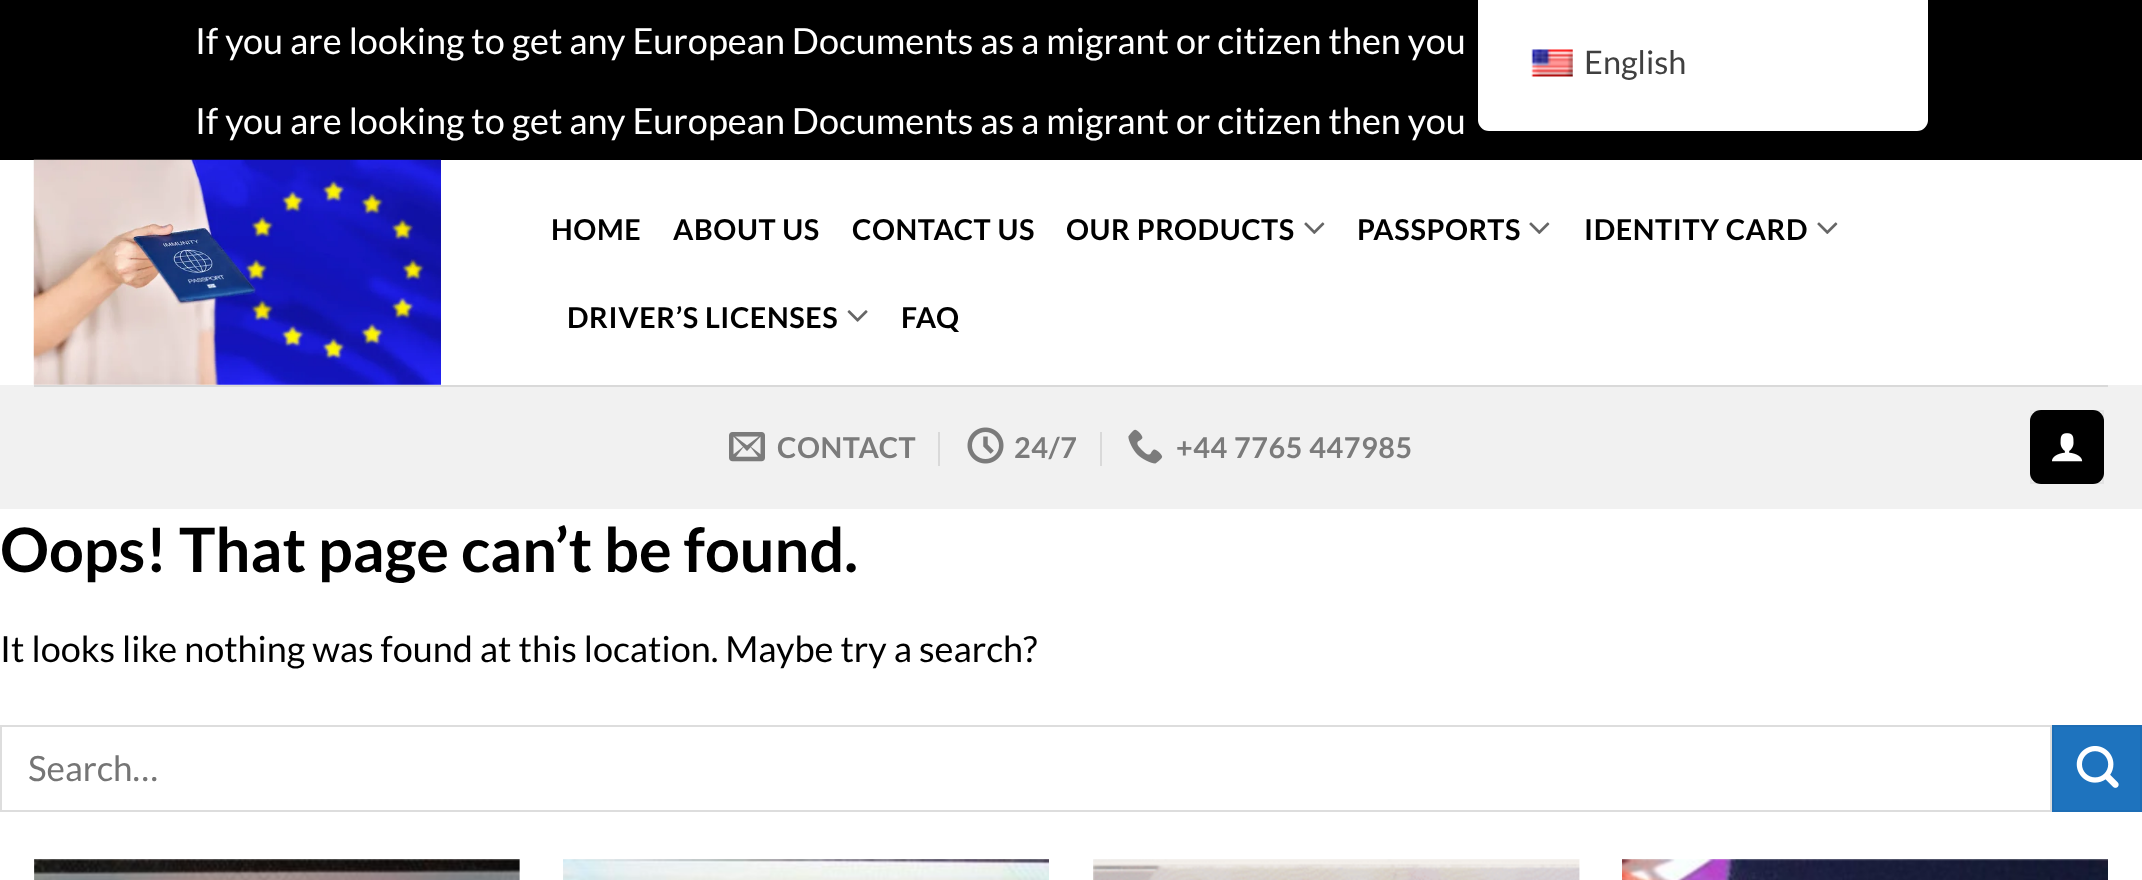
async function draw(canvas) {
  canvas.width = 2142
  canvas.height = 880
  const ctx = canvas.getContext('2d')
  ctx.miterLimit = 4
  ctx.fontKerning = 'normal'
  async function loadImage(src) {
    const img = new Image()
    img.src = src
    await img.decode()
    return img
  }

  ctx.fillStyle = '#000'
  ctx.fillRect(0, 0, 2142, 880)
  ctx.font = '36px Lato'
  ctx.fillStyle = '#fff'
  ctx.fillText('If you are looking to get any European Documents as a migrant or citizen then you', 195, 54)
  ctx.beginPath()
  ctx.roundRect(1478, 0, 450, 131, [0, 0, 11, 11])
  ctx.fill()
  ctx.drawImage(await loadImage('image0.png'), 1531, 49, 42, 28)
  ctx.font = '32.5px Lato'
  ctx.fillStyle = '#404040'
  ctx.fillText('English', 1584, 74)
  ctx.font = '36px Lato'
  ctx.fillStyle = '#fff'
  ctx.fillText('If you are looking to get any European Documents as a migrant or citizen then you', 195, 134)
  ctx.fillRect(0, 160, 2142, 720)
  ctx.drawImage(await loadImage('image1.png'), 33, 159, 408, 226)
  ctx.letterSpacing = '0.6px'
  ctx.font = 'bold 28.75px Lato'
  ctx.fillStyle = '#000'
  ctx.fillText('HOME', 551, 240)
  ctx.fillText('ABOUT US', 673, 240)
  ctx.fillText('CONTACT US', 852, 240)
  ctx.fillText('OUR PRODUCTS', 1066, 240)
  ctx.drawImage(await loadImage('image2.png'), 1304, 222, 21, 12)
  ctx.fillText('PASSPORTS', 1357, 240)
  ctx.drawImage(await loadImage('image2.png'), 1529, 222, 21, 12)
  ctx.fillText('IDENTITY CARD', 1584, 240)
  ctx.drawImage(await loadImage('image2.png'), 1817, 222, 21, 12)
  ctx.fillText('DRIVER’S LICENSES', 567, 328)
  ctx.drawImage(await loadImage('image3.png'), 847, 310, 21, 12)
  ctx.fillText('FAQ', 901, 328)
  ctx.fillStyle = '#f1f1f1'
  ctx.fillRect(0, 385, 2142, 124)
  ctx.fillStyle = '#d9d9d9'
  ctx.fillRect(34, 385, 2074, 2)
  ctx.drawImage(await loadImage('image4.png'), 729, 432, 36, 30)
  ctx.fillStyle = '#7b7b7b'
  ctx.fillText('CONTACT', 777, 458)
  ctx.fillStyle = '#d9d9d9'
  ctx.fillRect(938, 432, 2, 34)
  ctx.drawImage(await loadImage('image5.png'), 967, 427, 37, 37)
  ctx.fillStyle = '#7b7b7b'
  ctx.fillText('24/7', 1014, 458)
  ctx.fillStyle = '#d9d9d9'
  ctx.fillRect(1100, 432, 2, 34)
  ctx.drawImage(await loadImage('image6.png'), 1128, 429, 35, 35)
  ctx.fillStyle = '#7b7b7b'
  ctx.fillText('+44 7765 447985', 1176, 458)
  ctx.fillStyle = '#000'
  ctx.beginPath()
  ctx.roundRect(2030, 410, 74, 74, 11)
  ctx.fill()
  ctx.strokeStyle = '#0000000d'
  ctx.lineWidth = 2
  ctx.strokeRect(2031, 411, 72, 72)
  ctx.drawImage(await loadImage('image7.png'), 2052, 433, 31, 29)
  ctx.letterSpacing = '0px'
  ctx.font = 'bold 61.25px Lato'
  ctx.fillText('Oops! That page can’t be found.', 0, 572)
  ctx.font = '36px Lato'
  ctx.fillText('It looks like nothing was found at this location. Maybe try a search?', 0, 662)
  ctx.strokeStyle = '#ddd'
  ctx.strokeRect(1, 726, 2050, 85)
  ctx.font = '35px Lato'
  ctx.fillStyle = '#757575'
  ctx.fillText('Search…', 28, 781)
  ctx.fillStyle = '#1e73be'
  ctx.beginPath()
  ctx.rect(2053, 726, 88, 85)
  ctx.fill()
  ctx.strokeStyle = '#1d6db5'
  ctx.stroke()
  ctx.drawImage(await loadImage('image8.png'), 2076, 746, 43, 42)
  ctx.drawImage(await loadImage('image9.png'), 34, 859, 486, 21)
  ctx.drawImage(await loadImage('image10.png'), 563, 859, 486, 21)
  ctx.drawImage(await loadImage('image11.png'), 1093, 859, 487, 21)
  ctx.drawImage(await loadImage('image12.png'), 1622, 859, 486, 21)
}

draw(document.querySelector('canvas'))
